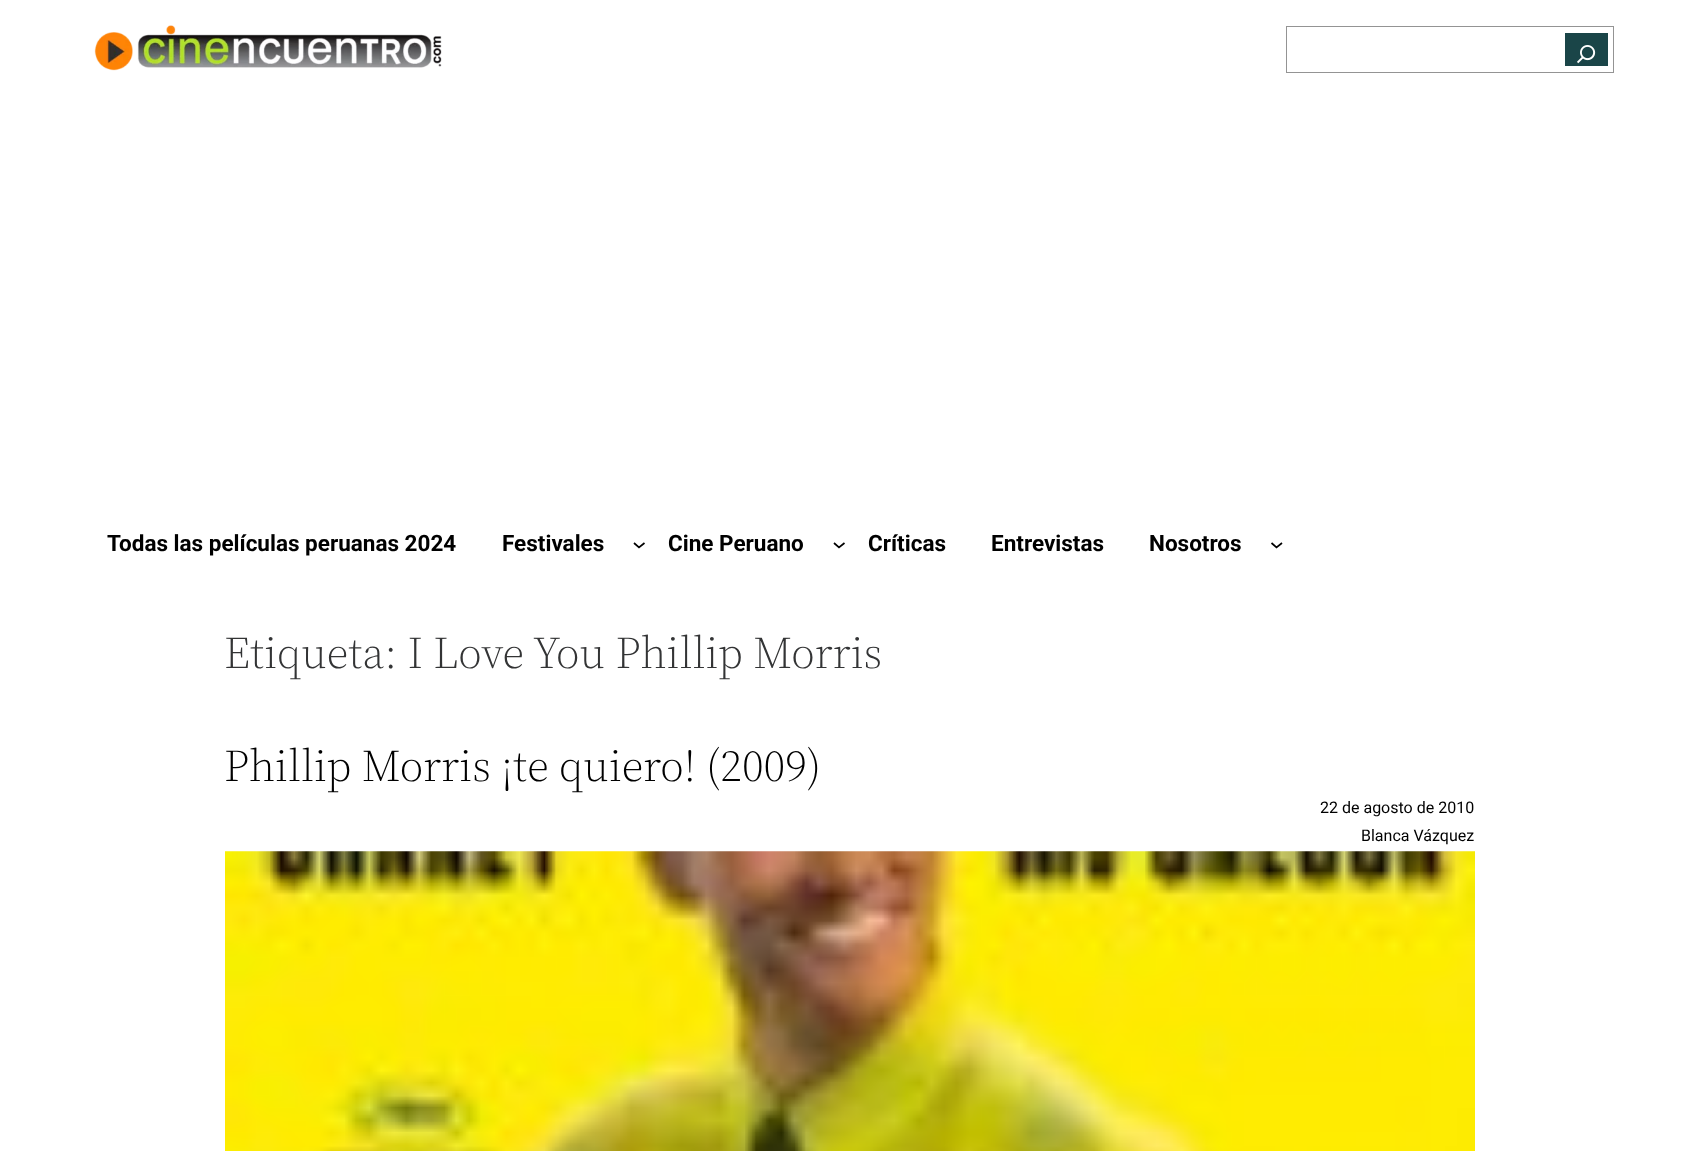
async function draw(canvas) {
  canvas.width = 1698
  canvas.height = 1151
  const ctx = canvas.getContext('2d')
  ctx.miterLimit = 4
  ctx.fontKerning = 'normal'
  async function loadImage(src) {
    const img = new Image()
    img.src = src
    await img.decode()
    return img
  }

  ctx.fillStyle = '#fff'
  ctx.fillRect(0, 0, 1698, 1151)
  ctx.drawImage(await loadImage('image0.png'), 94, 25, 348, 46)
  ctx.strokeStyle = '#949494'
  ctx.strokeRect(1286.5, 26.5, 327, 46)
  ctx.fillStyle = '#1a4548'
  ctx.fillRect(1565, 33, 43, 33)
  ctx.drawImage(await loadImage('image1.png'), 1577, 45, 19, 19)
  ctx.font = 'bold 22.5px Roboto'
  ctx.fillStyle = '#000'
  ctx.fillText('Todas las películas peruanas 2024', 107, 551)
  ctx.fillText('Festivales', 502, 551)
  ctx.beginPath()
  ctx.moveTo(634, 543)
  ctx.lineTo(639, 547.5)
  ctx.lineTo(644.5, 543)
  ctx.strokeStyle = '#000'
  ctx.lineWidth = 1.7
  ctx.stroke()
  ctx.fillText('Cine Peruano', 668, 551)
  ctx.beginPath()
  ctx.moveTo(834, 543)
  ctx.lineTo(839, 547.5)
  ctx.lineTo(844.5, 543)
  ctx.stroke()
  ctx.fillText('Críticas', 868, 551)
  ctx.fillText('Entrevistas', 991, 551)
  ctx.fillText('Nosotros', 1149, 551)
  ctx.beginPath()
  ctx.moveTo(1271.5, 543)
  ctx.lineTo(1276.5, 547.5)
  ctx.lineTo(1282, 543)
  ctx.stroke()
  ctx.font = '300 45px "Source Serif 4"'
  ctx.fillStyle = '#333435'
  ctx.fillText('Etiqueta: I Love You Phillip Morris', 224, 668)
  ctx.fillStyle = '#000'
  ctx.fillText('Phillip Morris ¡te quiero! (2009)', 224, 781)
  ctx.font = '16px Roboto'
  ctx.fillText('22 de agosto de 2010', 1320, 813)
  ctx.fillText('Blanca Vázquez', 1361, 841)
  ctx.drawImage(await loadImage('image2.png'), 225, 851, 1250, 300)
}

draw(document.querySelector('canvas'))
